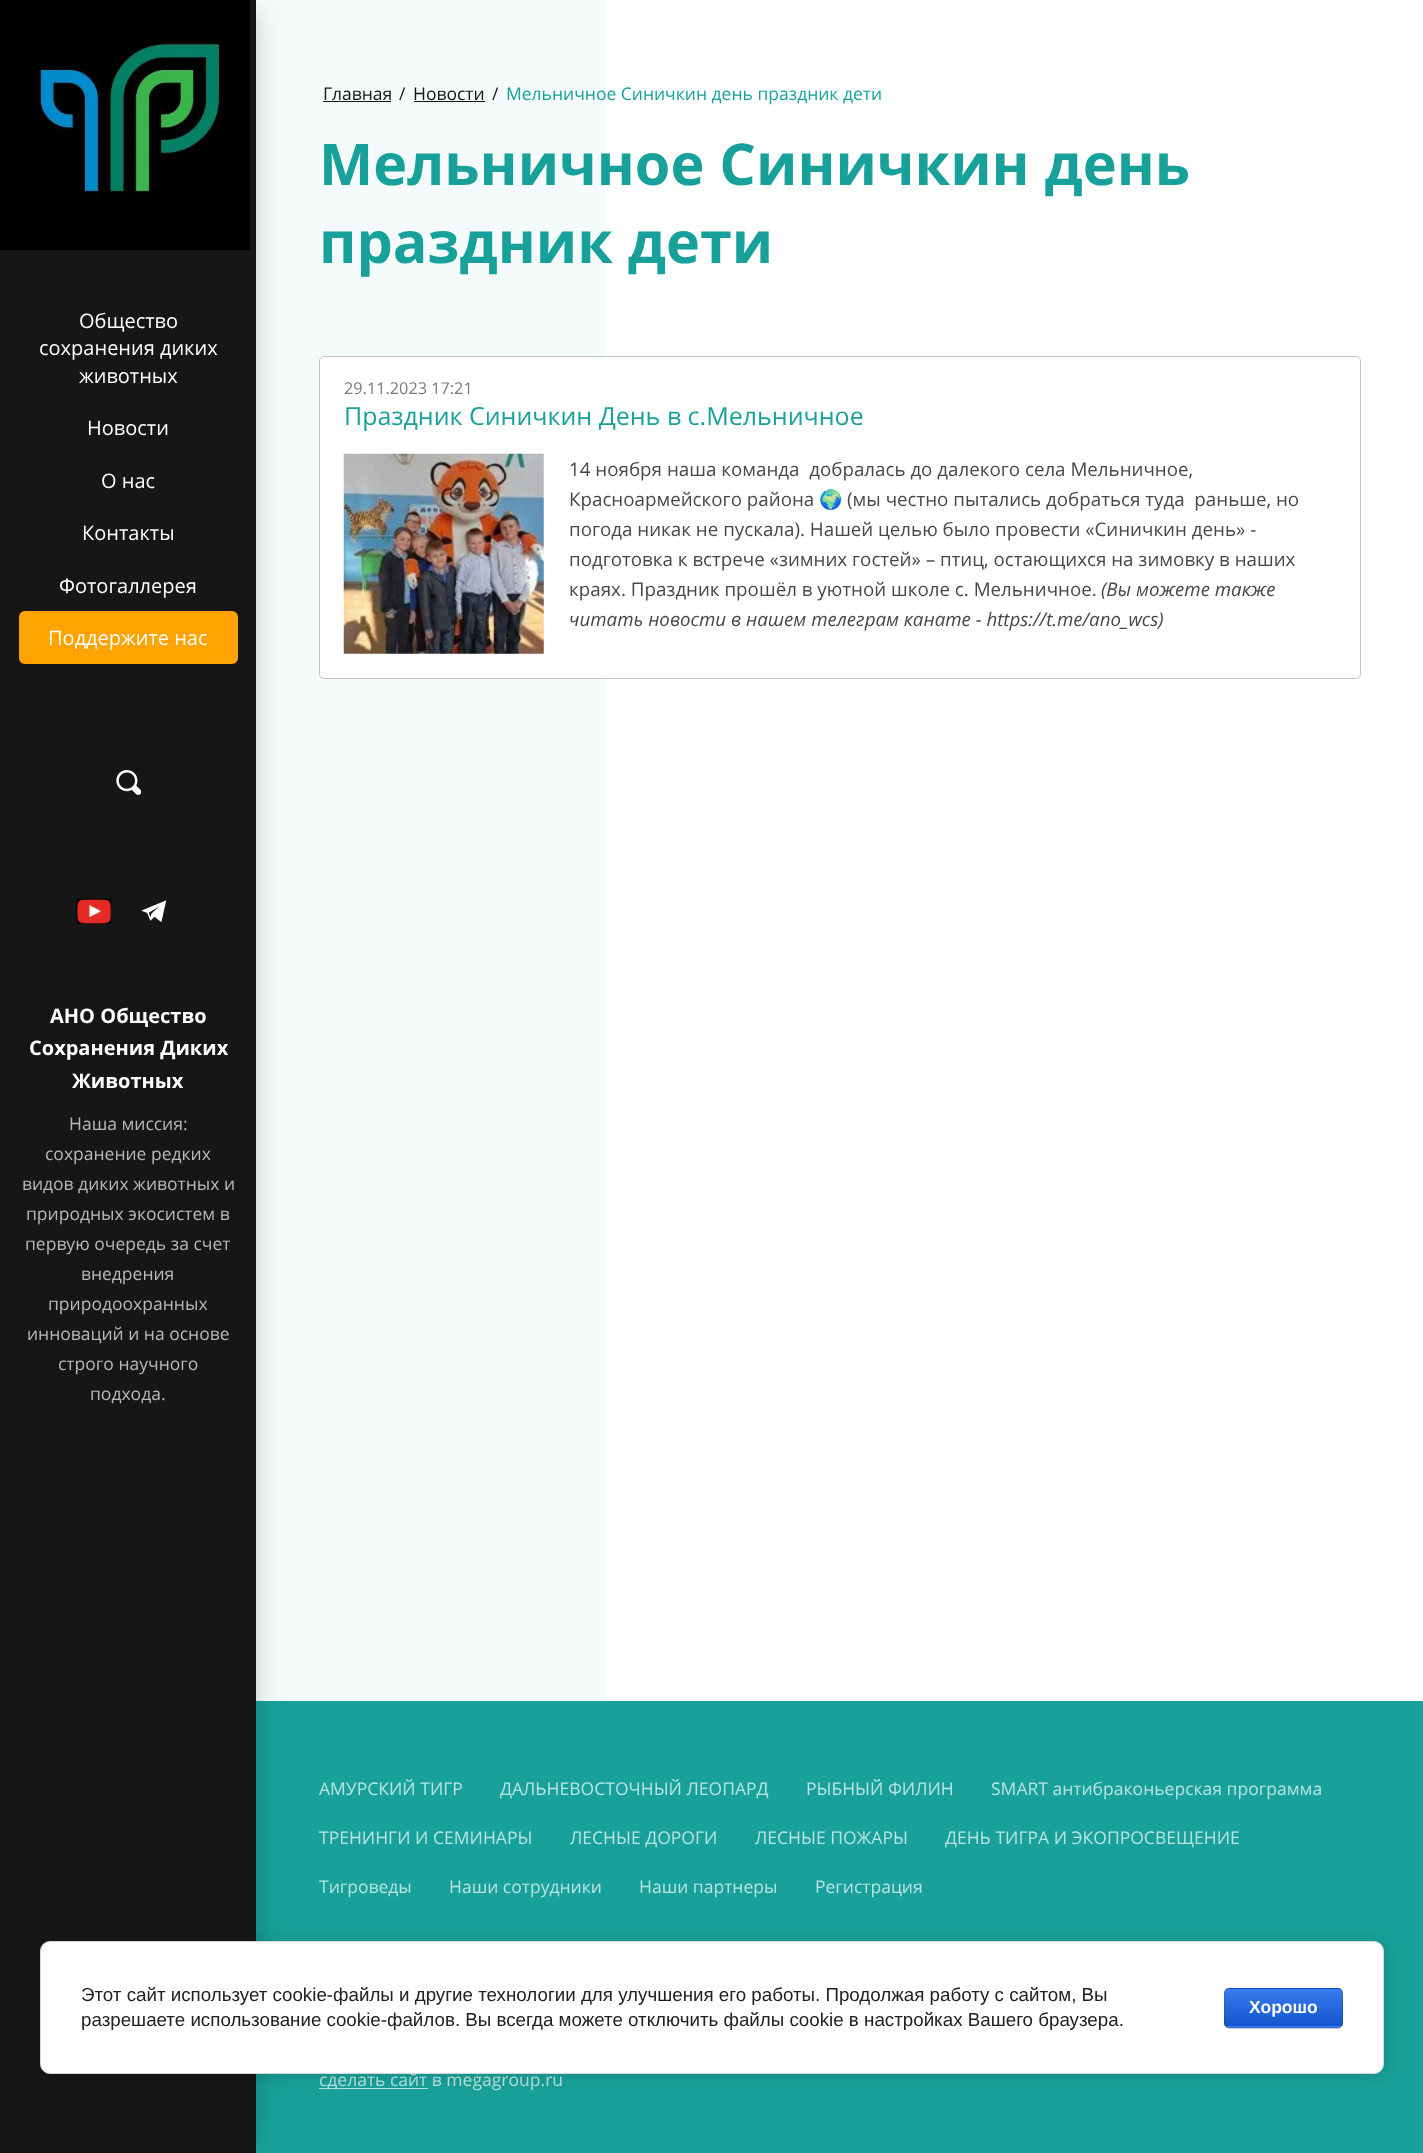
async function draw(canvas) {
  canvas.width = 1423
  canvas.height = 2153
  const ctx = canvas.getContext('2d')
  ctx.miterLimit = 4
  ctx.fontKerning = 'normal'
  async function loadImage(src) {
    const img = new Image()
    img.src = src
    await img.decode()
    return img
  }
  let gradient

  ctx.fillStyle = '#fff'
  ctx.fillRect(0, 0, 1423, 2153)
  ctx.fillStyle = '#f4fbfa'
  ctx.fillRect(256, 0, 350, 1701)
  ctx.fillStyle = '#18a19a'
  ctx.fillRect(256, 1701, 1167, 452)
  ctx.fillStyle = '#0000004d'
  ctx.filter = 'blur(15px)'
  ctx.beginPath()
  ctx.rect(19, 13, 231, 2128)
  ctx.fill()
  ctx.filter = 'none'
  ctx.fillStyle = '#161616'
  ctx.fillRect(0, 0, 256, 2153)
  ctx.drawImage(await loadImage('image0.png'), 0, 0, 250, 250)
  ctx.font = '20px Open Sans'
  ctx.fillStyle = '#fff'
  ctx.fillText('Общество', 79, 328)
  ctx.fillText('сохранения диких', 39, 355)
  ctx.fillText('животных', 79, 383)
  ctx.fillText('Новости', 87, 435)
  ctx.fillText('О нас', 101, 488)
  ctx.fillText('Контакты', 82, 540)
  ctx.fillText('Фотогаллерея', 59, 593)
  ctx.fillStyle = '#ffa300'
  ctx.beginPath()
  ctx.roundRect(19, 611, 219, 53, 6)
  ctx.fill()
  ctx.fillStyle = '#fff'
  ctx.fillText('Поддержите нас', 48, 645)
  ctx.drawImage(await loadImage('image1.png'), 116, 770, 25, 25)
  ctx.drawImage(await loadImage('image2.png'), 76, 898, 36, 26)
  ctx.drawImage(await loadImage('image3.png'), 141, 900, 25, 23)
  ctx.font = 'bold 20px Open Sans'
  ctx.fillText('АНО Общество', 50, 1023)
  ctx.fillText('Сохранения Диких', 29, 1055)
  ctx.fillText('Животных', 72, 1088)
  ctx.font = '17.5px Open Sans'
  ctx.fillStyle = '#b9b9b9'
  ctx.fillText('Наша миссия:', 69, 1130)
  ctx.fillText('сохранение редких', 45, 1160)
  ctx.fillText('видов диких животных и', 22, 1190)
  ctx.fillText('природных экосистем в', 26, 1220)
  ctx.fillText('первую очередь за счет', 25, 1250)
  ctx.fillText('внедрения', 81, 1280)
  ctx.fillText('природоохранных', 48, 1310)
  ctx.fillText('инноваций и на основе', 27, 1340)
  ctx.fillText('строго научного', 58, 1370)
  ctx.fillText('подхода.', 90, 1400)
  ctx.fillStyle = '#161616'
  ctx.fillText('Главная', 323, 100)
  ctx.fillRect(323, 101, 68, 1)
  ctx.fillText('/', 399, 100)
  ctx.fillText('Новости', 413, 100)
  ctx.fillRect(414, 101, 71, 1)
  ctx.fillText('/', 492, 100)
  ctx.fillStyle = '#18a19a'
  ctx.fillText('Мельничное Синичкин день праздник дети', 506, 100)
  ctx.font = 'bold 57.5px Open Sans'
  ctx.fillText('Мельничное Синичкин день', 319, 185)
  ctx.fillText('праздник дети', 319, 263)
  ctx.fillStyle = '#fff'
  ctx.beginPath()
  ctx.roundRect(319.5, 356.5, 1041, 322, 4.5)
  ctx.fill()
  ctx.strokeStyle = '#c5c5c5'
  ctx.stroke()
  ctx.font = '16.25px Open Sans'
  ctx.fillStyle = '#7b7b7b'
  ctx.fillText('29.11.2023 17:21', 344, 394)
  ctx.font = '25px Open Sans'
  ctx.fillStyle = '#18a19a'
  ctx.fillText('Праздник Синичкин День в с.Мельничное', 344, 425)
  ctx.drawImage(await loadImage('image4.png'), 343, 453, 201, 201)
  ctx.font = '18.75px Open Sans'
  ctx.fillStyle = '#484848'
  ctx.fillText('14 ноября наша команда  добралась до далекого села Мельничное,', 569, 476)
  ctx.fillText('Красноармейского района', 569, 506)
  ctx.font = '18.75px Noto Color Emoji'
  ctx.fillText('🌍', 819, 506)
  ctx.font = '18.75px Open Sans'
  ctx.fillText('(мы честно пытались добраться туда  раньше, но', 847, 506)
  ctx.fillText('погода никак не пускала). Нашей целью было провести «Синичкин день» -', 569, 536)
  ctx.fillText('подготовка к встрече «зимних гостей» – птиц, остающихся на зимовку в наших', 569, 566)
  ctx.fillText('краях. Праздник прошёл в уютной школе с. Мельничное.', 569, 596)
  ctx.font = 'italic 18.75px Open Sans'
  ctx.fillText('(Вы можете также', 1101, 596)
  ctx.fillText('читать новости в нашем телеграм канате - https://t.me/ano_wcs)', 569, 626)
  ctx.font = '17.5px Open Sans'
  ctx.fillStyle = '#bae3e1'
  ctx.fillText('АМУРСКИЙ ТИГР', 319, 1795)
  ctx.fillText('ДАЛЬНЕВОСТОЧНЫЙ ЛЕОПАРД', 500, 1795)
  ctx.fillText('РЫБНЫЙ ФИЛИН', 806, 1795)
  ctx.fillText('SMART антибраконьерская программа', 991, 1795)
  ctx.fillText('ТРЕНИНГИ И СЕМИНАРЫ', 319, 1844)
  ctx.fillText('ЛЕСНЫЕ ДОРОГИ', 570, 1844)
  ctx.fillText('ЛЕСНЫЕ ПОЖАРЫ', 755, 1844)
  ctx.fillText('ДЕНЬ ТИГРА И ЭКОПРОСВЕЩЕНИЕ', 945, 1844)
  ctx.fillText('Тигроведы', 319, 1893)
  ctx.fillText('Наши сотрудники', 449, 1893)
  ctx.fillText('Наши партнеры', 639, 1893)
  ctx.fillText('Регистрация', 815, 1893)
  ctx.fillRect(319, 2088, 109, 1)
  ctx.fillText('сделать сайт в megagroup.ru', 319, 2086)
  ctx.fillStyle = '#00000024'
  ctx.filter = 'blur(11px)'
  ctx.beginPath()
  ctx.roundRect(43, 1944, 1343, 132, 10)
  ctx.fill()
  ctx.filter = 'none'
  ctx.fillStyle = '#fff'
  ctx.beginPath()
  ctx.roundRect(40.5, 1941.5, 1343, 132, 9.5)
  ctx.fill()
  ctx.strokeStyle = '#d6d6d6'
  ctx.stroke()
  ctx.font = '18.75px Liberation Sans'
  ctx.fillStyle = '#212121'
  ctx.fillText('Этот сайт использует cookie-файлы и другие технологии для улучшения его работы. Продолжая работу с сайтом, Вы', 81, 2001)
  ctx.fillText('разрешаете использование cookie-файлов. Вы всегда можете отключить файлы cookie в настройках Вашего браузера.', 81, 2026)
  ctx.fillStyle = '#00000033'
  ctx.filter = 'blur(0.5px)'
  ctx.beginPath()
  ctx.roundRect(1224, 1989, 119, 40, 5)
  ctx.fill()
  ctx.filter = 'none'
  ctx.save()
  ctx.beginPath()
  ctx.roundRect(1224, 1988, 119, 40, 5)
  ctx.clip()
  gradient = ctx.createLinearGradient(1283, 1951, 1283, 1989)
  gradient.addColorStop(0, '#3b7cef')
  gradient.addColorStop(1, '#15c')
  ctx.fillStyle = gradient
  ctx.fillRect(1224, 1988, 119, 1)
  gradient = ctx.createLinearGradient(1283, 1989, 1283, 2026)
  gradient.addColorStop(0, '#3b7cef')
  gradient.addColorStop(1, '#15c')
  ctx.fillStyle = gradient
  ctx.fillRect(1224, 1989, 119, 37)
  gradient = ctx.createLinearGradient(1283, 2026, 1283, 2064)
  gradient.addColorStop(0, '#3b7cef')
  gradient.addColorStop(1, '#15c')
  ctx.fillStyle = gradient
  ctx.fillRect(1224, 2026, 119, 2)
  ctx.restore()
  ctx.beginPath()
  ctx.roundRect(1224.5, 1988.5, 118, 39, 4.5)
  ctx.strokeStyle = '#0000001a'
  ctx.stroke()
  ctx.font = 'bold 17.5px Liberation Sans'
  ctx.fillStyle = '#fff'
  ctx.fillText('Хорошо', 1249, 2013)
}

draw(document.querySelector('canvas'))
